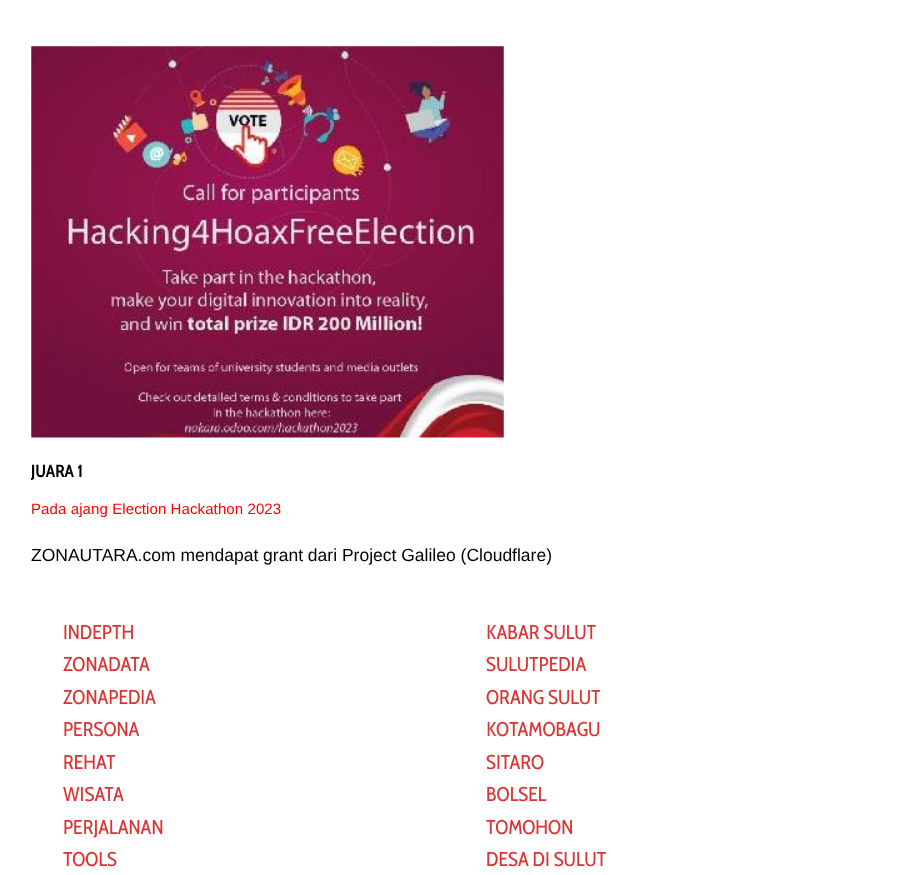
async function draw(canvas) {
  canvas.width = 921
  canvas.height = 875
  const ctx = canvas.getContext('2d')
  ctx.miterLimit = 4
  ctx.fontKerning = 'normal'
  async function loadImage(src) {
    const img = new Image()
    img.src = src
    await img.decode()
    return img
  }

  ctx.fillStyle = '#fff'
  ctx.fillRect(0, 0, 921, 875)
  ctx.drawImage(await loadImage('image0.png'), 31, 46, 473, 392)
  ctx.font = 'bold 17.5px Cabin Condensed'
  ctx.fillStyle = '#000'
  ctx.fillText('JUARA 1', 31, 477)
  ctx.letterSpacing = '0.1px'
  ctx.font = '15px Liberation Sans'
  ctx.fillStyle = '#f00'
  ctx.fillText('Pada ajang Election Hackathon 2023', 31, 514)
  ctx.letterSpacing = '0px'
  ctx.font = '17.5px Liberation Sans'
  ctx.fillStyle = '#000'
  ctx.fillText('ZONAUTARA.com mendapat grant dari Project Galileo (Cloudflare)', 31, 561)
  ctx.font = '20px Cabin Condensed'
  ctx.fillStyle = '#d33'
  ctx.fillText('INDEPTH', 63, 639)
  ctx.fillText('ZONADATA', 63, 671)
  ctx.fillText('ZONAPEDIA', 63, 704)
  ctx.fillText('PERSONA', 63, 736)
  ctx.fillText('REHAT', 63, 769)
  ctx.fillText('WISATA', 63, 801)
  ctx.fillText('PERJALANAN', 63, 834)
  ctx.fillText('TOOLS', 63, 866)
  ctx.fillText('KABAR SULUT', 486, 639)
  ctx.fillText('SULUTPEDIA', 486, 671)
  ctx.fillText('ORANG SULUT', 486, 704)
  ctx.fillText('KOTAMOBAGU', 486, 736)
  ctx.fillText('SITARO', 486, 769)
  ctx.fillText('BOLSEL', 486, 801)
  ctx.fillText('TOMOHON', 486, 834)
  ctx.fillText('DESA DI SULUT', 486, 866)
}

draw(document.querySelector('canvas'))
